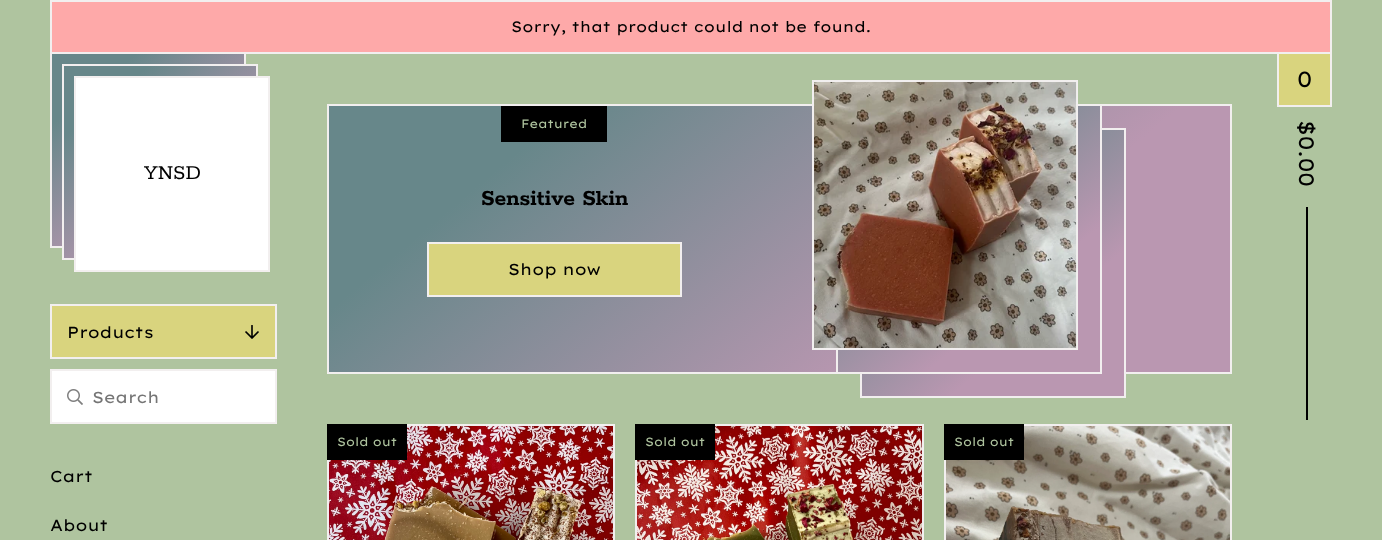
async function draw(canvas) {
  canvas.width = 1382
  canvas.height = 540
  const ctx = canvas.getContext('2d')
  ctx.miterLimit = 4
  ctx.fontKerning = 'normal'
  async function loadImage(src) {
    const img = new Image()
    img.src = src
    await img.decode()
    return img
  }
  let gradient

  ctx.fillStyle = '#afc49f'
  ctx.fillRect(0, 0, 1382, 540)
  ctx.fillStyle = '#fea9a9'
  ctx.beginPath()
  ctx.rect(51, 1, 1280, 52)
  ctx.fill()
  ctx.strokeStyle = '#f2efef'
  ctx.lineWidth = 2
  ctx.stroke()
  ctx.font = '15px Lexend Exa'
  ctx.fillStyle = '#000'
  ctx.fillText('Sorry, that product could not be found.', 511, 32)
  ctx.fillStyle = '#d9d47e'
  ctx.beginPath()
  ctx.rect(51, 305, 225, 53)
  ctx.fill()
  ctx.stroke()
  ctx.font = '16px Lexend Exa'
  ctx.fillStyle = '#000'
  ctx.fillText('Products', 67, 338)
  ctx.drawImage(await loadImage('image0.png'), 245, 325, 14, 14)
  ctx.fillStyle = '#fff'
  ctx.beginPath()
  ctx.rect(51, 370, 225, 53)
  ctx.fill()
  ctx.stroke()
  ctx.drawImage(await loadImage('image1.png'), 67, 389, 16, 16)
  ctx.fillStyle = '#757575'
  ctx.fillText('Search', 92, 403)
  ctx.fillStyle = '#000'
  ctx.fillText('Cart', 50, 482)
  ctx.fillText('About', 50, 531)
  gradient = ctx.createLinearGradient(528, -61, 1031, 539)
  gradient.addColorStop(0.2, '#67878a')
  gradient.addColorStop(0.7, '#ba97b1')
  ctx.fillStyle = gradient
  ctx.fillRect(329, 106, 901, 266)
  ctx.strokeRect(328, 105, 903, 268)
  ctx.fillStyle = '#000'
  ctx.fillRect(501, 106, 106, 36)
  ctx.font = '12px Lexend Exa'
  ctx.fillStyle = '#afc49f'
  ctx.fillText('Featured', 521, 128)
  ctx.font = 'bold 24px Rokkitt'
  ctx.fillStyle = '#000'
  ctx.fillText('Sensitive Skin', 481, 205)
  ctx.fillStyle = '#d9d47e'
  ctx.beginPath()
  ctx.rect(428, 243, 253, 53)
  ctx.fill()
  ctx.stroke()
  ctx.font = '16px Lexend Exa'
  ctx.fillStyle = '#000'
  ctx.fillText('Shop now', 508, 275)
  gradient = ctx.createLinearGradient(873, 120, 1113, 406)
  gradient.addColorStop(0.2, '#67878a')
  gradient.addColorStop(0.7, '#ba97b1')
  ctx.fillStyle = gradient
  ctx.fillRect(862, 130, 262, 266)
  ctx.strokeRect(861, 129, 264, 268)
  gradient = ctx.createLinearGradient(849, 96, 1089, 382)
  gradient.addColorStop(0.2, '#67878a')
  gradient.addColorStop(0.7, '#ba97b1')
  ctx.fillStyle = gradient
  ctx.fillRect(838, 106, 262, 266)
  ctx.strokeRect(837, 105, 264, 268)
  ctx.strokeRect(813, 81, 264, 268)
  ctx.drawImage(await loadImage('image2.png'), 814, 82, 263, 266)
  ctx.strokeRect(328, 425, 286, 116)
  ctx.drawImage(await loadImage('image3.png'), 329, 426, 284, 114)
  ctx.fillStyle = '#000'
  ctx.fillRect(327, 424, 80, 36)
  ctx.font = '12px Lexend Exa'
  ctx.fillStyle = '#afc49f'
  ctx.fillText('Sold out', 337, 446)
  ctx.strokeRect(636, 425, 287, 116)
  ctx.drawImage(await loadImage('image4.png'), 637, 426, 285, 114)
  ctx.fillStyle = '#000'
  ctx.fillRect(635, 424, 80, 36)
  ctx.fillStyle = '#afc49f'
  ctx.fillText('Sold out', 645, 446)
  ctx.strokeRect(945, 425, 286, 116)
  ctx.drawImage(await loadImage('image5.png'), 946, 426, 284, 114)
  ctx.fillStyle = '#000'
  ctx.fillRect(944, 424, 80, 36)
  ctx.fillStyle = '#afc49f'
  ctx.fillText('Sold out', 954, 446)
  ctx.fillStyle = '#d9d47e'
  ctx.beginPath()
  ctx.rect(1278, 53, 53, 53)
  ctx.fill()
  ctx.stroke()
  ctx.font = '22px Lexend Exa'
  ctx.fillStyle = '#000'
  ctx.fillText('0', 1297, 87)
  ctx.font = '21px Lexend Exa'
  ctx.save()
  ctx.translate(1299, 120)
  ctx.rotate(90 * Math.PI / 180)
  ctx.fillText('$0.00', 0, 0)
  ctx.restore()
  ctx.fillRect(1306, 207, 2, 213)
  gradient = ctx.createLinearGradient(61, 46, 235, 254)
  gradient.addColorStop(0.2, '#67878a')
  gradient.addColorStop(0.7, '#ba97b1')
  ctx.fillStyle = gradient
  ctx.fillRect(52, 54, 192, 192)
  ctx.strokeRect(51, 53, 194, 194)
  gradient = ctx.createLinearGradient(73, 58, 247, 266)
  gradient.addColorStop(0.2, '#67878a')
  gradient.addColorStop(0.7, '#ba97b1')
  ctx.fillStyle = gradient
  ctx.fillRect(64, 66, 192, 192)
  ctx.strokeRect(63, 65, 194, 194)
  ctx.fillStyle = '#fff'
  ctx.beginPath()
  ctx.rect(75, 77, 194, 194)
  ctx.fill()
  ctx.stroke()
  ctx.font = '22px Rokkitt'
  ctx.fillStyle = '#000'
  ctx.fillText('YNSD', 144, 179)
}

draw(document.querySelector('canvas'))
